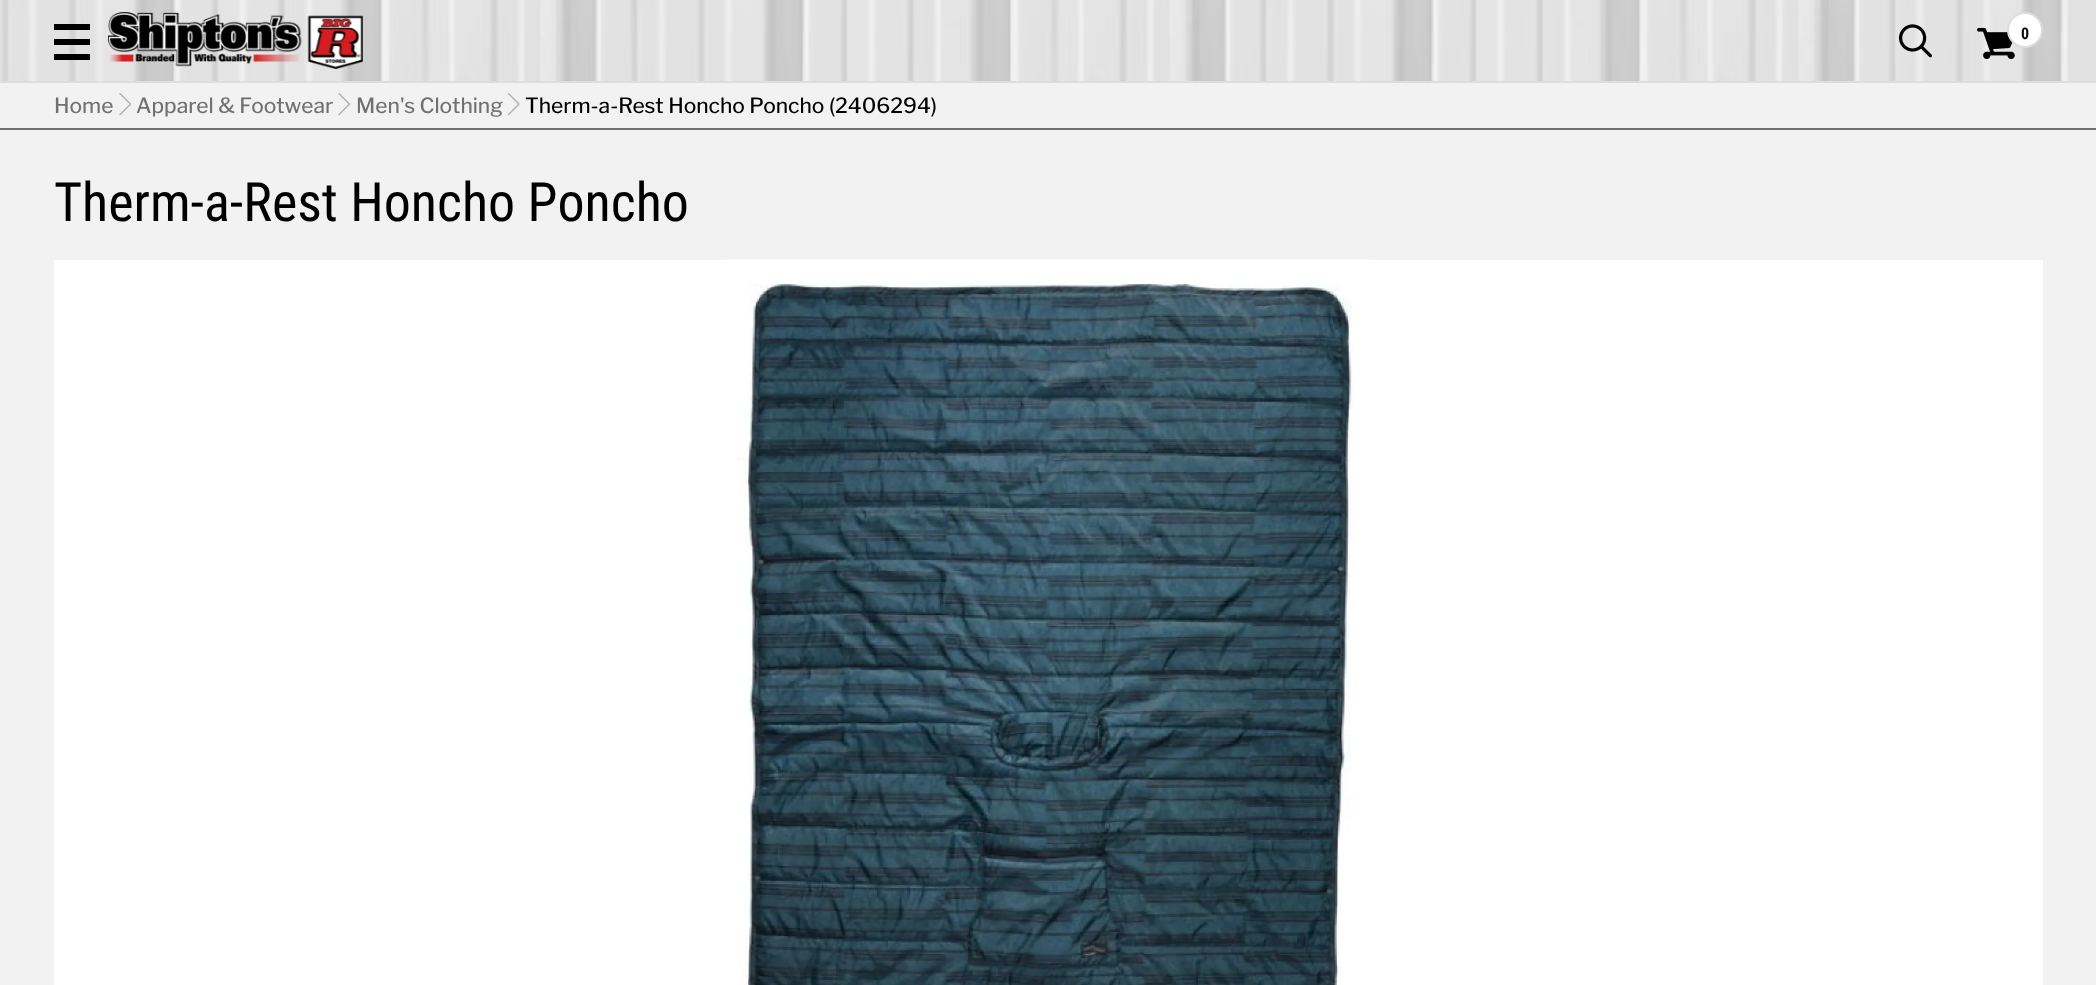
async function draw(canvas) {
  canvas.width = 2096
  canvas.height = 985
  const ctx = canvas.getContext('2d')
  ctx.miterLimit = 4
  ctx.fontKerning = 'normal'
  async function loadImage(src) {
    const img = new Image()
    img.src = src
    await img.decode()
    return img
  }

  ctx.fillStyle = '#f2f2f2'
  ctx.fillRect(0, 0, 2096, 985)
  ctx.fillStyle = '#e1e1e1'
  ctx.fillRect(0, 0, 2096, 81)
  ctx.drawImage(await loadImage('image0.png'), 1, 0, 2068, 81)
  ctx.fillStyle = '#ddd'
  ctx.fillRect(0, 81, 2096, 2)
  ctx.fillStyle = '#000'
  ctx.fillRect(54, 24, 36, 6)
  ctx.fillRect(54, 39, 36, 6)
  ctx.fillRect(54, 54, 36, 6)
  ctx.drawImage(await loadImage('image1.png'), 108, 12, 255, 57)
  ctx.drawImage(await loadImage('image2.png'), 1899, 24, 33, 34)
  ctx.drawImage(await loadImage('image3.png'), 1977, 27, 38, 32)
  ctx.fillStyle = '#fff'
  ctx.beginPath()
  ctx.arc(2025, 30, 17, 0, 2 * Math.PI)
  ctx.fill()
  ctx.strokeStyle = '#ddd'
  ctx.lineWidth = 2
  ctx.stroke()
  ctx.font = 'bold 16px Roboto Condensed'
  ctx.fillStyle = '#000'
  ctx.fillText('0', 2021, 39)
  ctx.fillStyle = '#707070'
  ctx.fillRect(0, 128, 2096, 2)
  ctx.font = '21px Libre Franklin'
  ctx.fillText('Home', 54, 113)
  ctx.drawImage(await loadImage('image4.png'), 119, 93, 13, 23)
  ctx.fillText('Apparel & Footwear', 136, 113)
  ctx.drawImage(await loadImage('image4.png'), 338, 93, 13, 23)
  ctx.fillText('Men\'s Clothing', 356, 113)
  ctx.drawImage(await loadImage('image5.png'), 507, 93, 13, 23)
  ctx.fillStyle = '#000'
  ctx.fillText('Therm-a-Rest Honcho Poncho (2406294)', 525, 113)
  ctx.font = '54px Roboto Condensed'
  ctx.fillText('Therm-a-Rest Honcho Poncho', 54, 221)
  ctx.fillStyle = '#fff'
  ctx.fillRect(54, 260, 1989, 725)
  ctx.drawImage(await loadImage('image6.png'), 725, 259, 647, 726)
}

draw(document.querySelector('canvas'))
